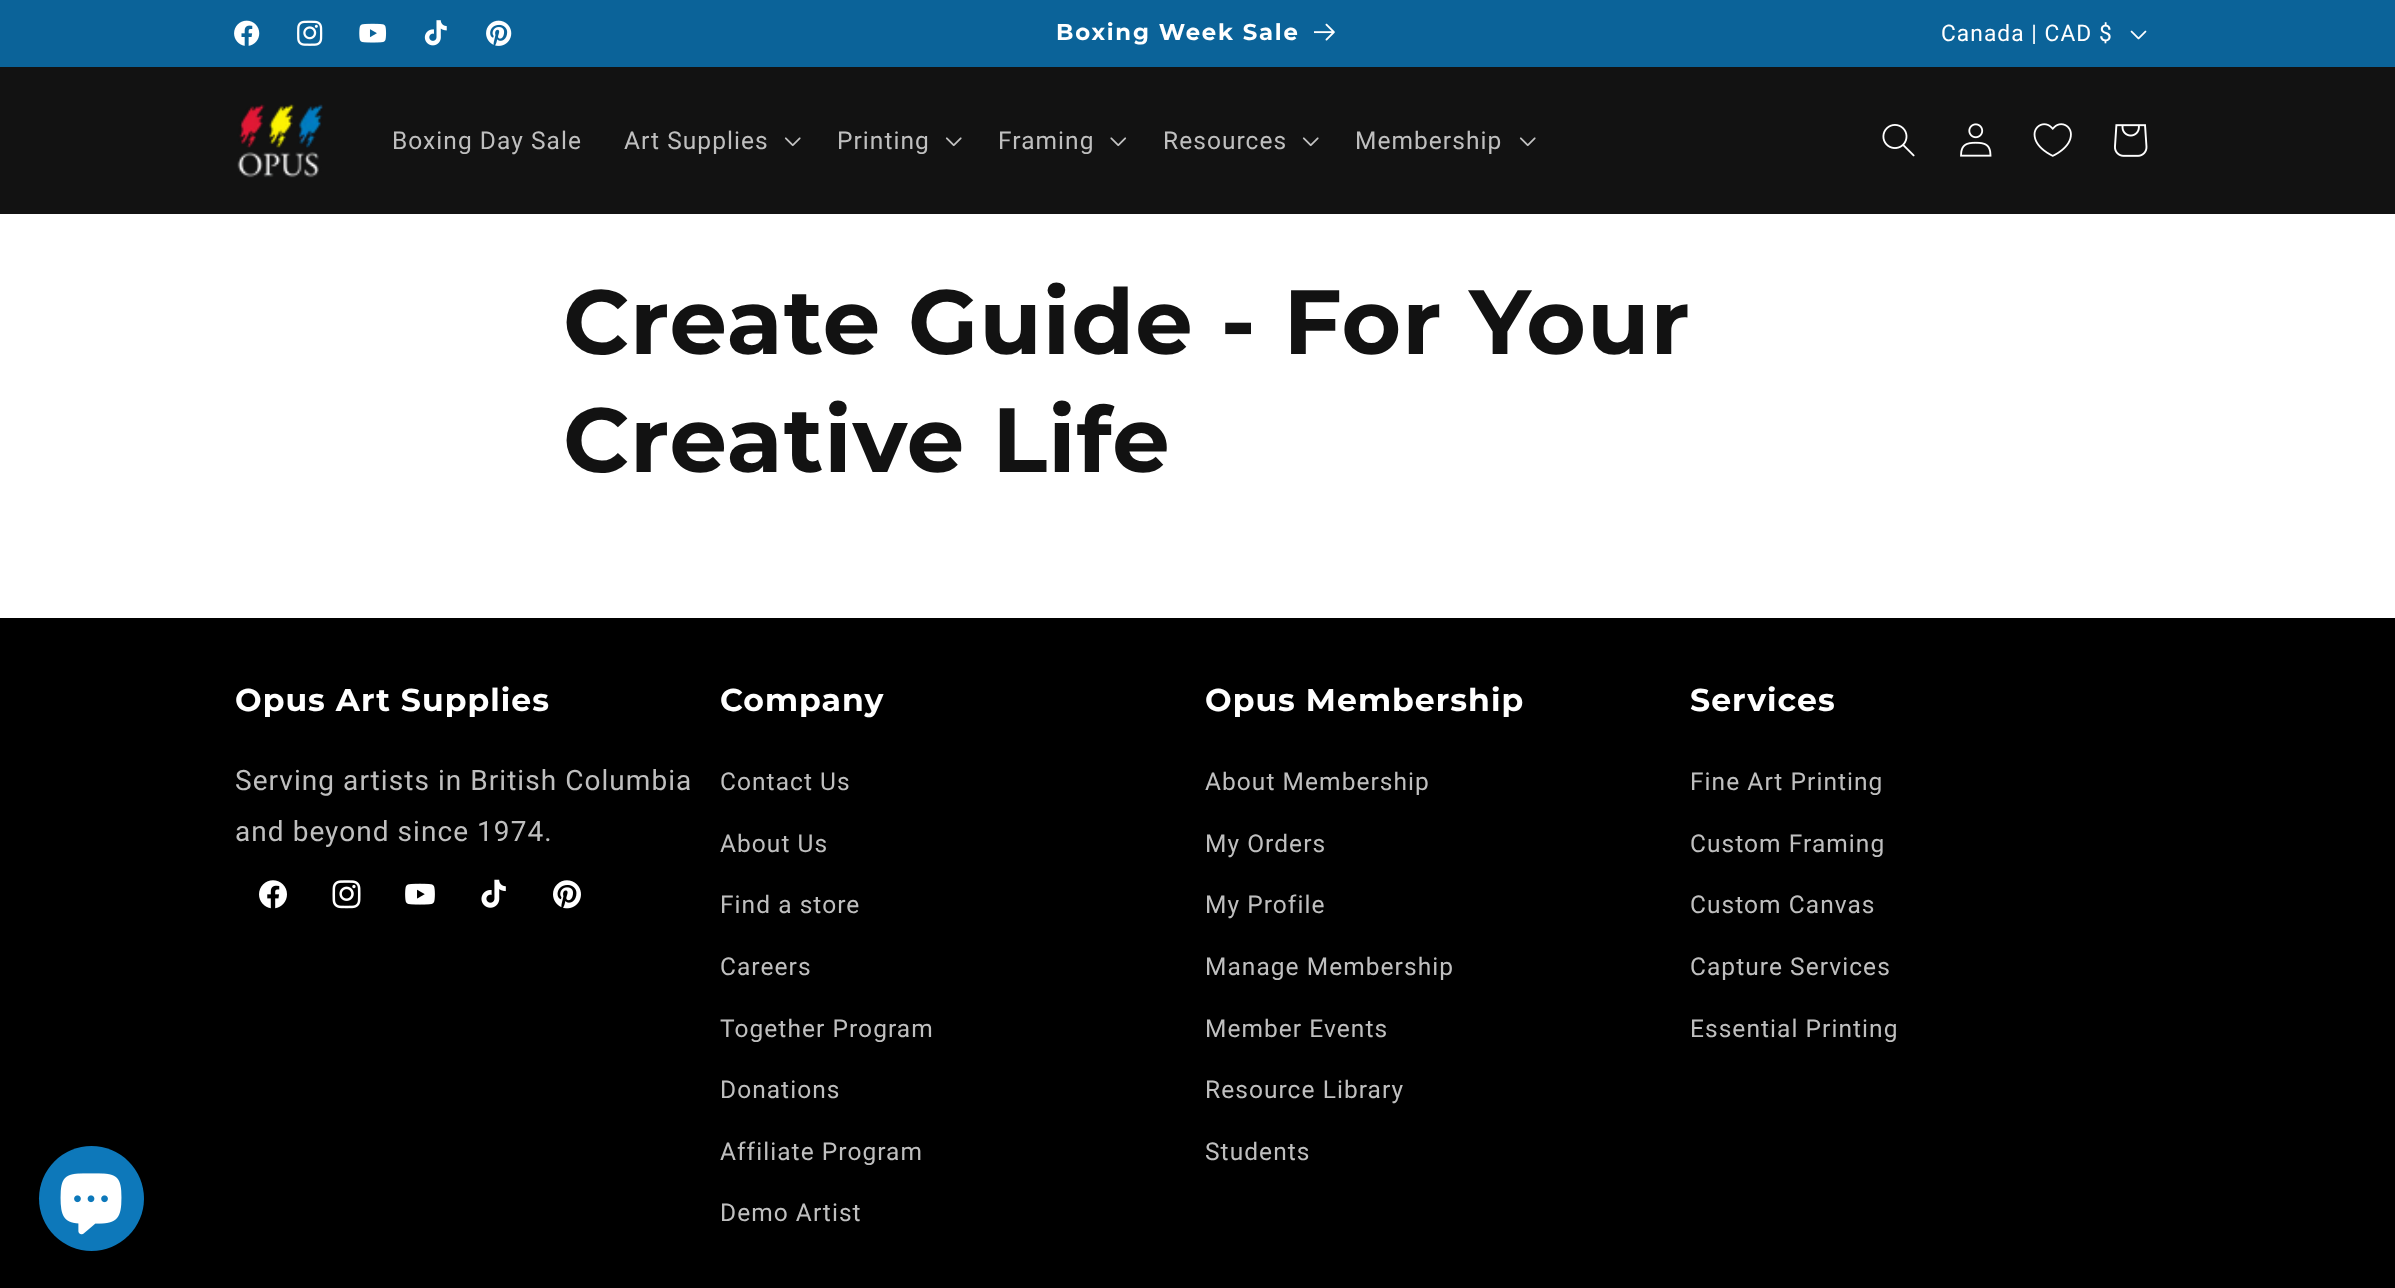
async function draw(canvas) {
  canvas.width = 2395
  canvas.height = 1288
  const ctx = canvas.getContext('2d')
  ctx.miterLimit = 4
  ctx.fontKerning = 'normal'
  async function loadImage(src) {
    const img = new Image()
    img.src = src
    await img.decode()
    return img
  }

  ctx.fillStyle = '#fff'
  ctx.fillRect(0, 0, 2395, 1288)
  ctx.fillStyle = '#0b6399'
  ctx.fillRect(0, 0, 2395, 67)
  ctx.drawImage(await loadImage('image0.png'), 234, 20, 26, 26)
  ctx.drawImage(await loadImage('image1.png'), 297, 20, 26, 26)
  ctx.drawImage(await loadImage('image2.png'), 359, 23, 28, 20)
  ctx.drawImage(await loadImage('image3.png'), 424, 20, 23, 26)
  ctx.drawImage(await loadImage('image4.png'), 486, 20, 26, 26)
  ctx.letterSpacing = '1.75px'
  ctx.font = 'bold 22.75px Montserrat'
  ctx.fillStyle = '#fff'
  ctx.fillText('Boxing Week Sale', 1056, 40)
  ctx.drawImage(await loadImage('image5.png'), 1314, 23, 21, 18)
  ctx.letterSpacing = '1.05px'
  ctx.font = '22.75px Roboto'
  ctx.fillText('Canada | CAD $', 1941, 41)
  ctx.drawImage(await loadImage('image6.png'), 2130, 30, 17, 10)
  ctx.fillStyle = '#121212'
  ctx.fillRect(0, 67, 2395, 147)
  ctx.drawImage(await loadImage('image7.png'), 237, 104, 86, 74)
  ctx.font = '24.5px Roboto'
  ctx.fillStyle = '#bfbfbf'
  ctx.fillText('Boxing Day Sale', 392, 149)
  ctx.fillText('Art Supplies', 624, 149)
  ctx.drawImage(await loadImage('image8.png'), 784, 137, 17, 10)
  ctx.fillText('Printing', 837, 149)
  ctx.drawImage(await loadImage('image8.png'), 945, 137, 17, 10)
  ctx.fillText('Framing', 998, 149)
  ctx.drawImage(await loadImage('image9.png'), 1110, 137, 17, 10)
  ctx.fillText('Resources', 1163, 149)
  ctx.drawImage(await loadImage('image8.png'), 1302, 137, 17, 10)
  ctx.fillText('Membership', 1355, 149)
  ctx.drawImage(await loadImage('image8.png'), 1519, 137, 17, 10)
  ctx.drawImage(await loadImage('image10.png'), 1882, 124, 33, 33)
  ctx.drawImage(await loadImage('image11.png'), 1960, 123, 32, 34)
  ctx.drawImage(await loadImage('image12.png'), 2033, 123, 39, 34)
  ctx.drawImage(await loadImage('image13.png'), 2114, 124, 34, 33)
  ctx.font = 'bold 91px Montserrat'
  ctx.fillStyle = '#121212'
  ctx.fillText('Create Guide - For Your', 563, 354)
  ctx.fillText('Creative Life', 563, 472)
  ctx.fillStyle = '#000'
  ctx.fillRect(0, 618, 2395, 670)
  ctx.fillStyle = '#0d78ba'
  ctx.beginPath()
  ctx.arc(91.5, 1198.5, 52.5, 0, 2 * Math.PI)
  ctx.fill()
  ctx.drawImage(await loadImage('image14.png'), 60, 1173, 62, 62)
  ctx.font = 'bold 31.5px Montserrat'
  ctx.fillStyle = '#fff'
  ctx.fillText('Opus Art Supplies', 235, 711)
  ctx.font = '28px Roboto'
  ctx.fillStyle = '#bfbfbf'
  ctx.fillText('Serving artists in British Columbia', 235, 790)
  ctx.fillText('and beyond since 1974.', 235, 841)
  ctx.drawImage(await loadImage('image15.png'), 259, 880, 28, 29)
  ctx.drawImage(await loadImage('image16.png'), 332, 880, 29, 29)
  ctx.drawImage(await loadImage('image17.png'), 405, 883, 30, 22)
  ctx.drawImage(await loadImage('image18.png'), 481, 879, 25, 29)
  ctx.drawImage(await loadImage('image19.png'), 553, 880, 28, 29)
  ctx.font = 'bold 31.5px Montserrat'
  ctx.fillStyle = '#fff'
  ctx.fillText('Company', 720, 711)
  ctx.font = '24.5px Roboto'
  ctx.fillStyle = '#bfbfbf'
  ctx.fillText('Contact Us', 720, 790)
  ctx.fillText('About Us', 720, 852)
  ctx.fillText('Find a store', 720, 913)
  ctx.fillText('Careers', 720, 975)
  ctx.fillText('Together Program', 720, 1037)
  ctx.fillText('Donations', 720, 1098)
  ctx.fillText('Affiliate Program', 720, 1160)
  ctx.fillText('Demo Artist', 720, 1221)
  ctx.font = 'bold 31.5px Montserrat'
  ctx.fillStyle = '#fff'
  ctx.fillText('Opus Membership', 1205, 711)
  ctx.font = '24.5px Roboto'
  ctx.fillStyle = '#bfbfbf'
  ctx.fillText('About Membership', 1205, 790)
  ctx.fillText('My Orders', 1205, 852)
  ctx.fillText('My Profile', 1205, 913)
  ctx.fillText('Manage Membership', 1205, 975)
  ctx.fillText('Member Events', 1205, 1037)
  ctx.fillText('Resource Library', 1205, 1098)
  ctx.fillText('Students', 1205, 1160)
  ctx.font = 'bold 31.5px Montserrat'
  ctx.fillStyle = '#fff'
  ctx.fillText('Services', 1690, 711)
  ctx.font = '24.5px Roboto'
  ctx.fillStyle = '#bfbfbf'
  ctx.fillText('Fine Art Printing', 1690, 790)
  ctx.fillText('Custom Framing', 1690, 852)
  ctx.fillText('Custom Canvas', 1690, 913)
  ctx.fillText('Capture Services', 1690, 975)
  ctx.fillText('Essential Printing', 1690, 1037)
}

draw(document.querySelector('canvas'))
